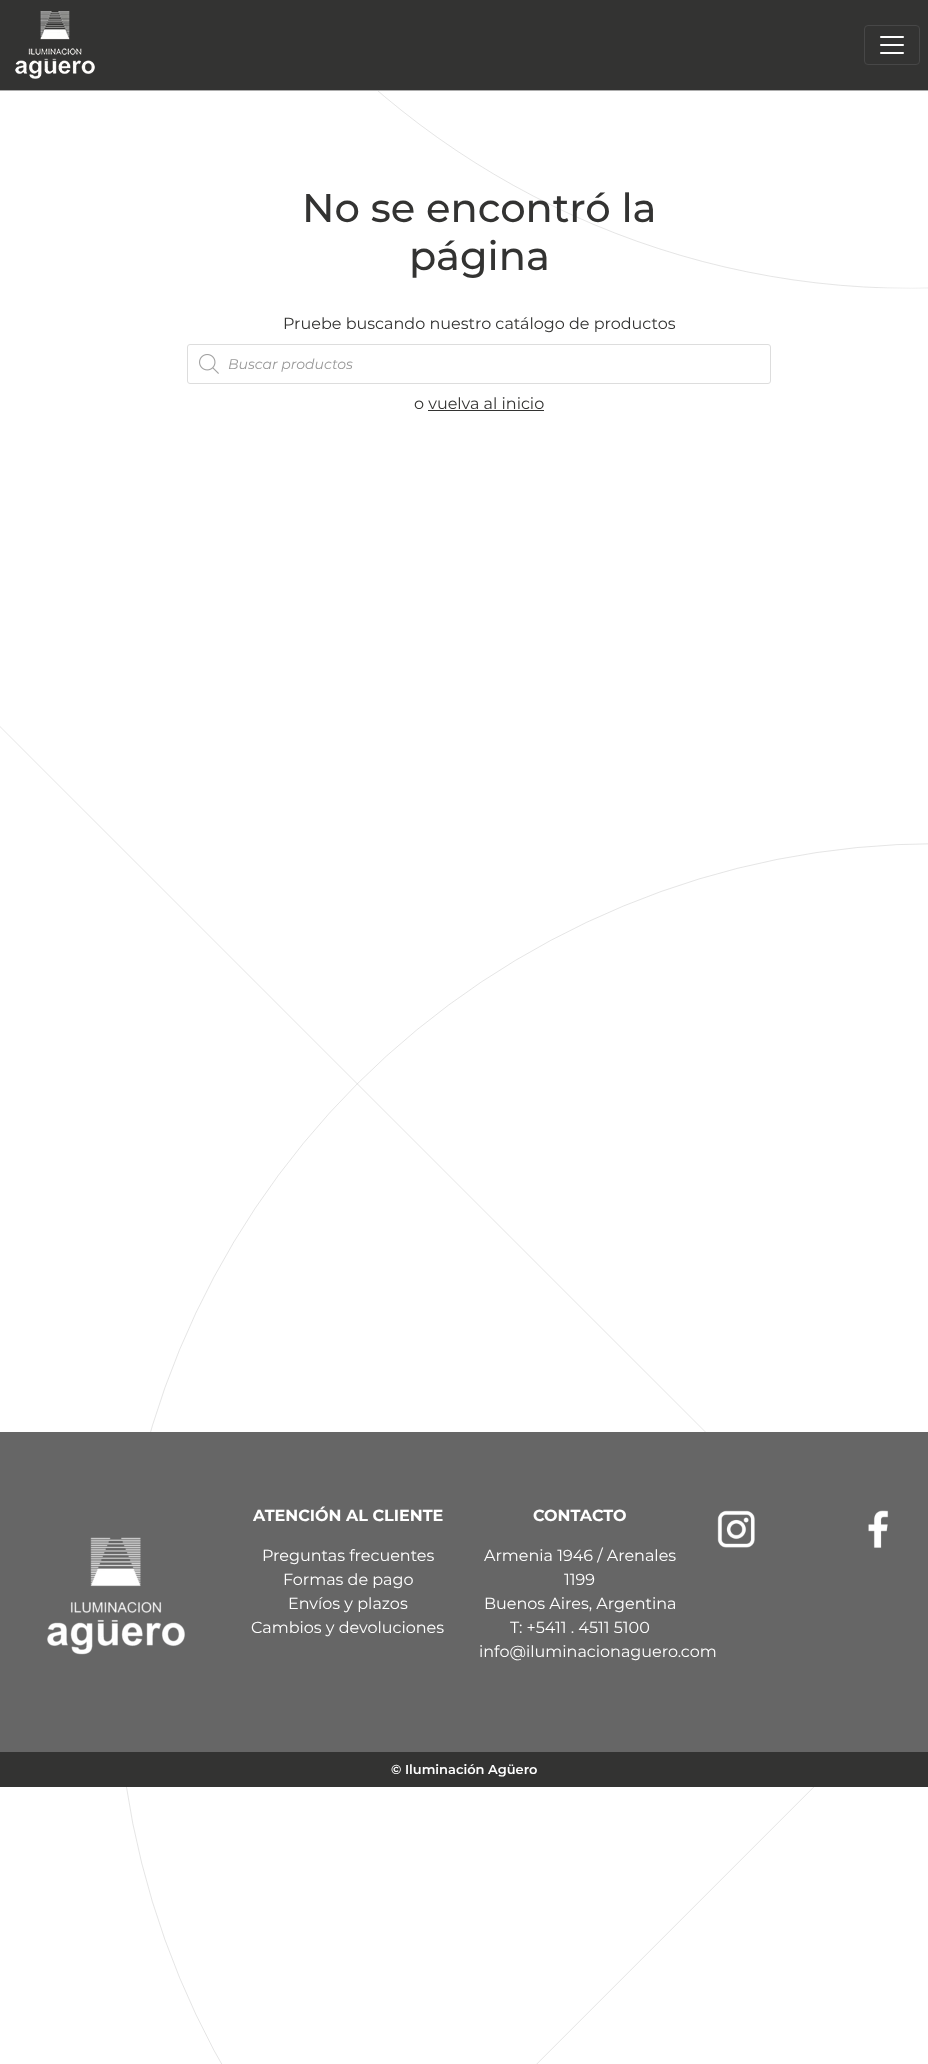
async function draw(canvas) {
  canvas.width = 928
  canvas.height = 2064
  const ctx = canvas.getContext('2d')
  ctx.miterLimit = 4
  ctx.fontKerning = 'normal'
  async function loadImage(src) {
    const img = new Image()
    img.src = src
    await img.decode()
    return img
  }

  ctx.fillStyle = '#fff'
  ctx.fillRect(0, 0, 928, 2064)
  ctx.drawImage(await loadImage('image0.png'), 0, 91, 928, 1973)
  ctx.fillStyle = '#333332'
  ctx.fillRect(0, 0, 928, 90)
  ctx.fillStyle = '#acacac'
  ctx.fillRect(0, 90, 928, 1)
  ctx.drawImage(await loadImage('image1.png'), 15, 11, 80, 68)
  ctx.beginPath()
  ctx.roundRect(864.5, 25.5, 55, 39, 3.5)
  ctx.strokeStyle = '#474747'
  ctx.stroke()
  ctx.drawImage(await loadImage('image2.png'), 880, 36, 24, 18)
  ctx.font = '500 40px Montserrat'
  ctx.fillStyle = '#333332'
  ctx.fillText('No se encontró la', 302, 222)
  ctx.fillText('página', 409, 270)
  ctx.font = '16px Montserrat'
  ctx.fillText('Pruebe buscando nuestro catálogo de productos', 283, 329)
  ctx.beginPath()
  ctx.roundRect(187.5, 344.5, 583, 39, 2.5)
  ctx.strokeStyle = '#ddd'
  ctx.stroke()
  ctx.drawImage(await loadImage('image3.png'), 199, 354, 20, 20)
  ctx.font = 'italic 14px Montserrat'
  ctx.fillStyle = '#999'
  ctx.fillText('Buscar productos', 228, 369)
  ctx.font = '16px Montserrat'
  ctx.fillStyle = '#333332'
  ctx.fillText('o vuelva al inicio', 414, 409)
  ctx.fillRect(428, 410, 116, 1)
  ctx.fillStyle = '#666'
  ctx.fillRect(0, 1432, 928, 320)
  ctx.font = 'bold 16px Montserrat'
  ctx.fillStyle = '#fff'
  ctx.fillText('ATENCIÓN AL CLIENTE', 253, 1521)
  ctx.font = '16px Montserrat'
  ctx.fillText('Preguntas frecuentes', 262, 1561)
  ctx.fillText('Formas de pago', 283, 1585)
  ctx.fillText('Envíos y plazos', 288, 1609)
  ctx.fillText('Cambios y devoluciones', 251, 1633)
  ctx.font = 'bold 16px Montserrat'
  ctx.fillText('CONTACTO', 533, 1521)
  ctx.font = '16px Montserrat'
  ctx.fillText('Armenia 1946 / Arenales', 484, 1561)
  ctx.fillText('1199', 564, 1585)
  ctx.fillText('Buenos Aires, Argentina', 484, 1609)
  ctx.fillText('T: +5411 . 4511 5100', 510, 1633)
  ctx.fillText('info@iluminacionaguero.com', 479, 1657)
  ctx.drawImage(await loadImage('image4.png'), 717, 1510, 38, 38)
  ctx.drawImage(await loadImage('image5.png'), 868, 1510, 21, 38)
  ctx.drawImage(await loadImage('image6.png'), 47, 1537, 138, 118)
  ctx.fillStyle = '#333332'
  ctx.fillRect(0, 1752, 928, 35)
  ctx.font = '600 13px Montserrat'
  ctx.fillStyle = '#fff'
  ctx.fillText('© Iluminación Agüero', 391, 1774)
}

draw(document.querySelector('canvas'))
